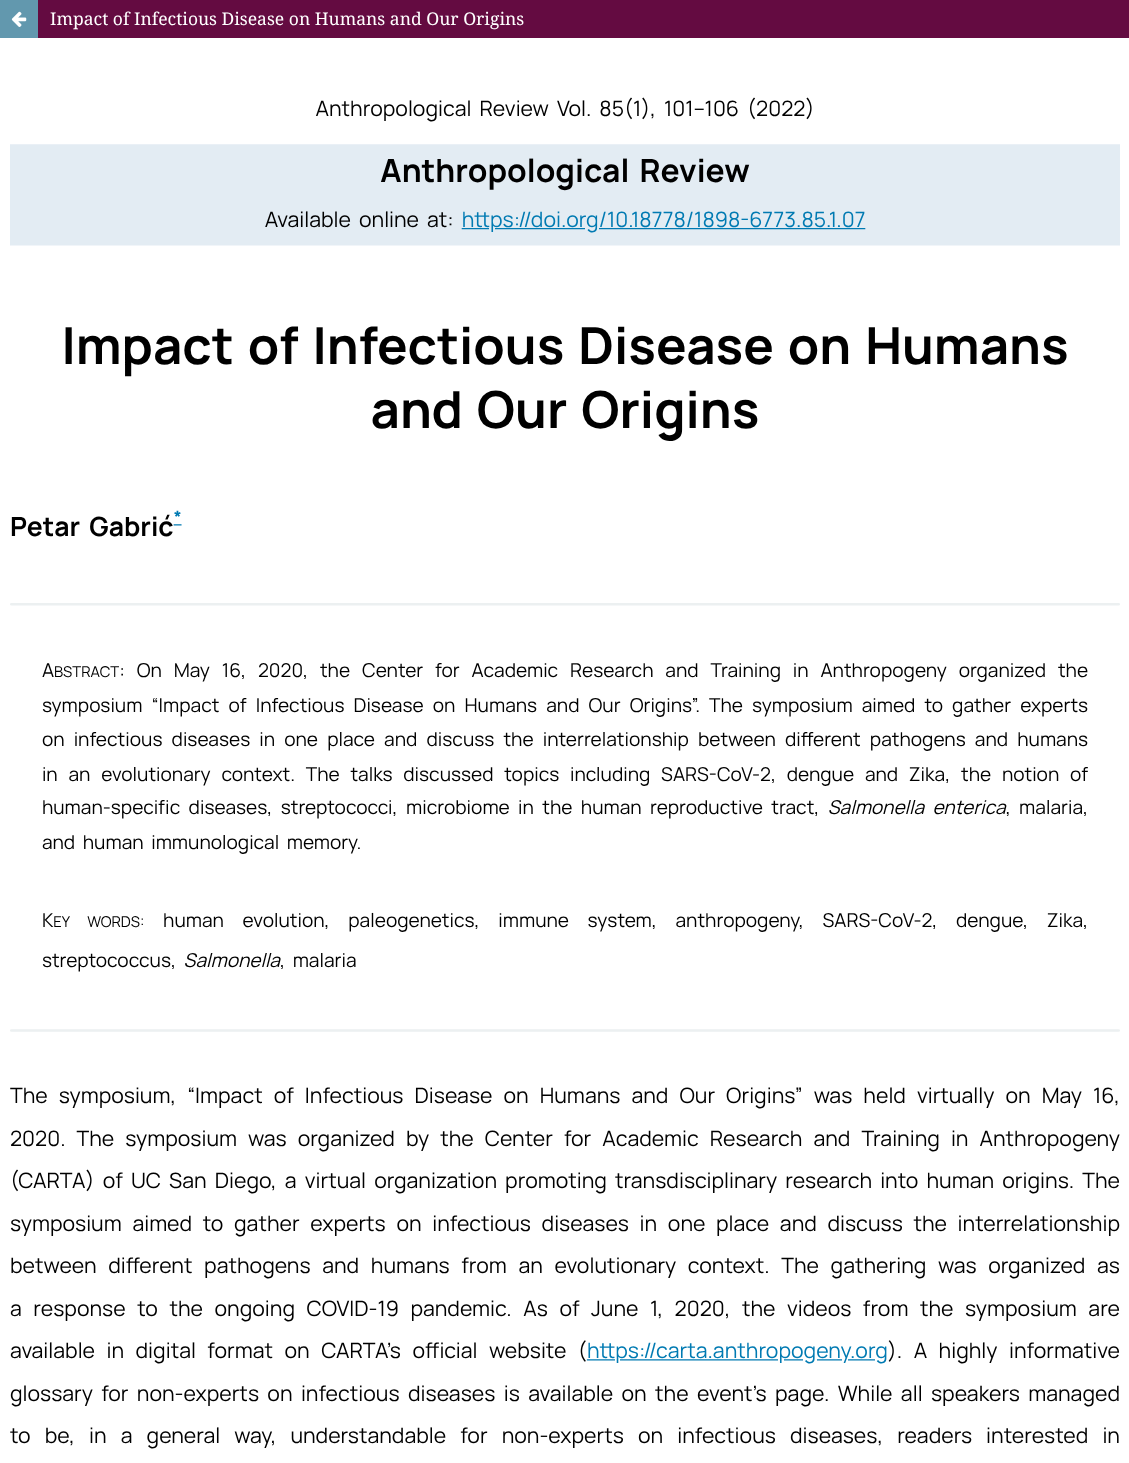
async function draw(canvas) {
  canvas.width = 1129
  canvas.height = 1463
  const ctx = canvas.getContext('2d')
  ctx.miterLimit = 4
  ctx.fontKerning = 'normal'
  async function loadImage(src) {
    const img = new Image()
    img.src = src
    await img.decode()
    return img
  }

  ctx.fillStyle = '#fff'
  ctx.fillRect(0, 0, 1129, 1463)
  ctx.fillStyle = '#640b41'
  ctx.fillRect(38, 0, 1091, 38)
  ctx.fillStyle = '#6298ae'
  ctx.fillRect(0, 0, 38, 38)
  ctx.drawImage(await loadImage('image0.png'), 11, 11, 16, 16)
  ctx.font = '17.5px Noto Serif'
  ctx.fillStyle = '#fff'
  ctx.fillText('Impact of Infectious Disease on Humans and Our Origins', 50, 25)
  ctx.drawImage(await loadImage('image1.png'), 0, 38, 1129, 1425)
}

draw(document.querySelector('canvas'))
